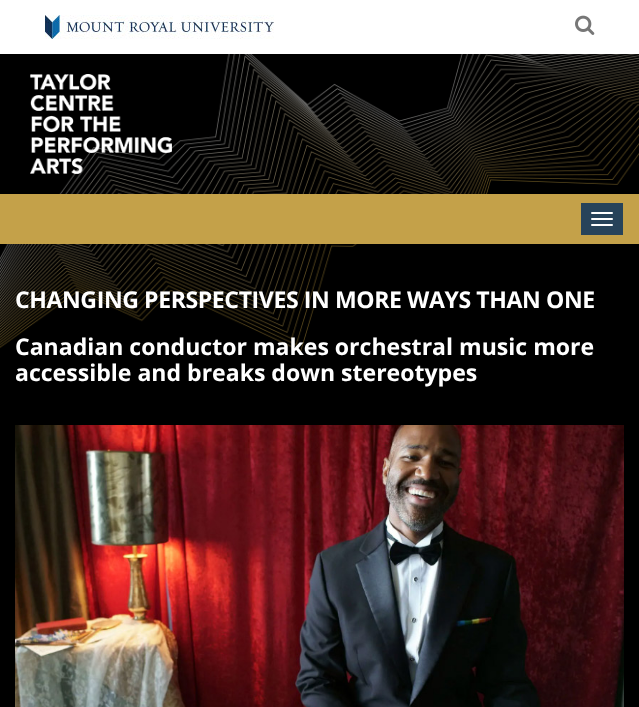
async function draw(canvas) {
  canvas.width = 639
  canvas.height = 707
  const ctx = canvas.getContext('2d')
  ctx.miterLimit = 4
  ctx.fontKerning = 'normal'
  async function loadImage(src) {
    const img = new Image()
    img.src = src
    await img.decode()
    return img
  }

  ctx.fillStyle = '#000'
  ctx.fillRect(0, 0, 639, 707)
  ctx.drawImage(await loadImage('image0.png'), 0, 54, 639, 298)
  ctx.fillStyle = '#fff'
  ctx.fillRect(0, 0, 639, 54)
  ctx.drawImage(await loadImage('image1.png'), 45, 15, 229, 24)
  ctx.drawImage(await loadImage('image2.png'), 575, 15, 20, 20)
  ctx.drawImage(await loadImage('image3.png'), 30, 74, 142, 100)
  ctx.fillStyle = '#c4a149'
  ctx.fillRect(0, 194, 639, 50)
  ctx.fillStyle = '#27435a'
  ctx.fillRect(581, 203, 42, 32)
  ctx.fillStyle = '#fff'
  ctx.beginPath()
  ctx.roundRect(591, 212, 22, 2, 1)
  ctx.fill()
  ctx.beginPath()
  ctx.roundRect(591, 218, 22, 2, 1)
  ctx.fill()
  ctx.beginPath()
  ctx.roundRect(591, 224, 22, 2, 1)
  ctx.fill()
  ctx.letterSpacing = '-0.4px'
  ctx.font = 'bold 23.05px Open Sans'
  ctx.fillText('CHANGING PERSPECTIVES IN MORE WAYS THAN ONE', 15, 308)
  ctx.letterSpacing = '0px'
  ctx.fillText('Canadian conductor makes orchestral music more', 15, 355)
  ctx.fillText('accessible and breaks down stereotypes', 15, 381)
  ctx.drawImage(await loadImage('image4.png'), 15, 425, 609, 282)
}

draw(document.querySelector('canvas'))
